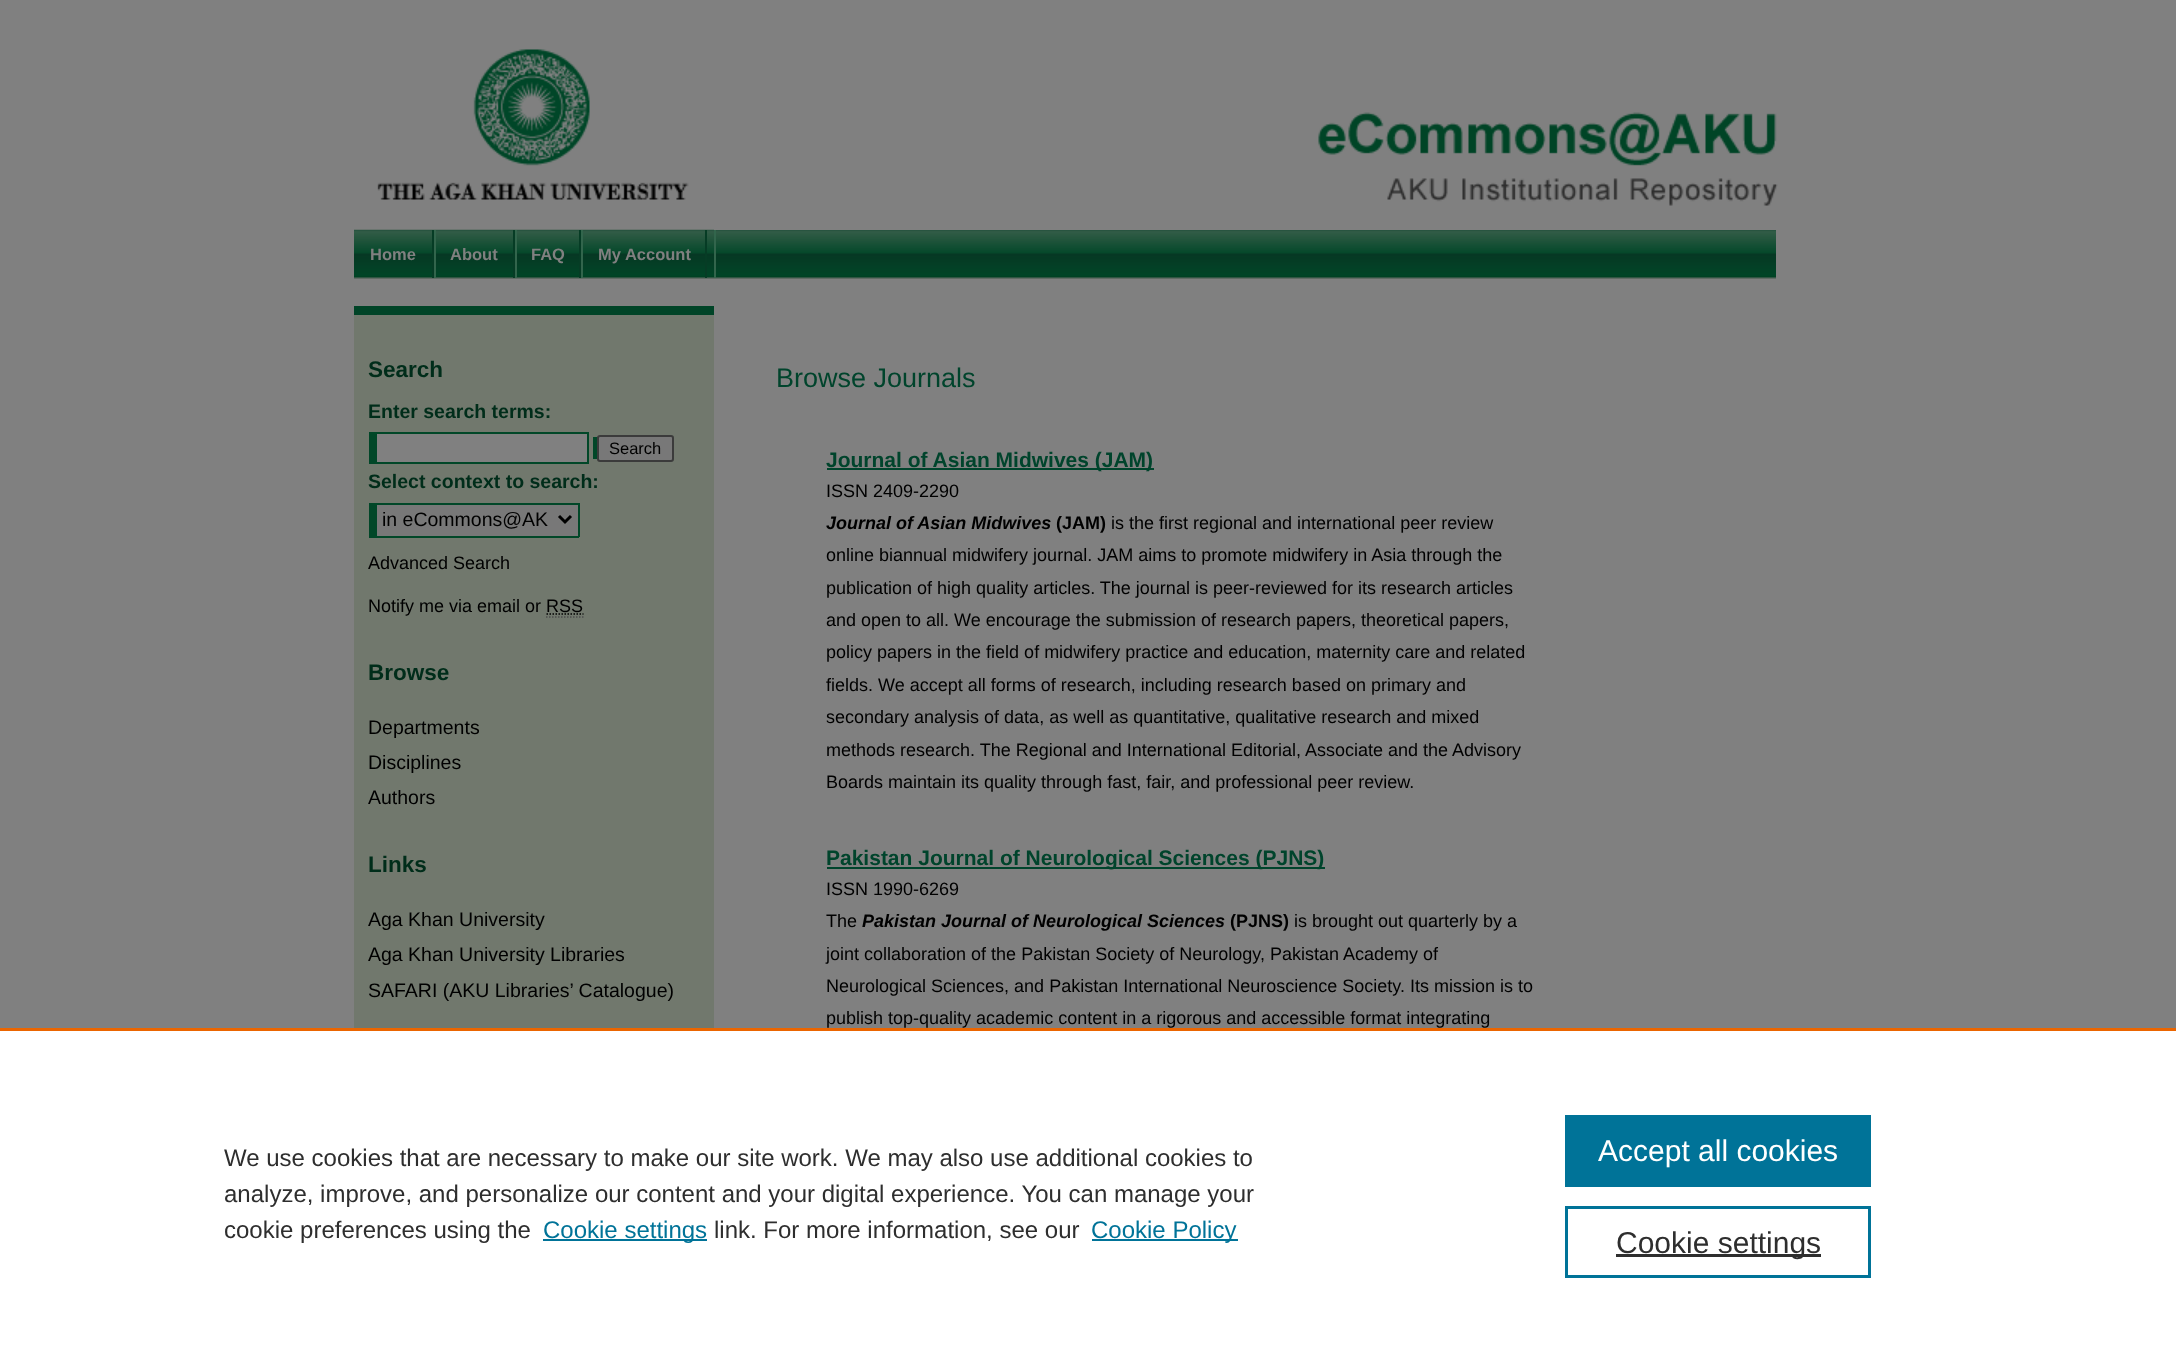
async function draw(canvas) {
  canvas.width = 2176
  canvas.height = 1357
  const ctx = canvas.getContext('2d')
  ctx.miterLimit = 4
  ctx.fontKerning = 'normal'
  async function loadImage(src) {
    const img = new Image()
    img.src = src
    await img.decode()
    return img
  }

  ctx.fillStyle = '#808080'
  ctx.fillRect(0, 0, 2176, 1357)
  ctx.drawImage(await loadImage('image2.png'), 354, 229, 1422, 50)
  ctx.drawImage(await loadImage('image0.png'), 354, 49, 360, 181)
  ctx.fillRect(714, 229, 1062, 1)
  ctx.drawImage(await loadImage('image1.png'), 1318, 112, 460, 94)
  ctx.fillStyle = '#32654c'
  ctx.fillRect(714, 230, 2, 48)
  ctx.fillStyle = '#063c25'
  ctx.fillRect(432, 230, 2, 48)
  ctx.font = 'bold 16.5px Liberation Sans'
  ctx.fillStyle = '#808080'
  ctx.fillText('Home', 370, 260)
  ctx.fillStyle = '#063c25'
  ctx.fillRect(513, 230, 2, 48)
  ctx.fillStyle = '#32654c'
  ctx.fillRect(434, 230, 2, 48)
  ctx.fillStyle = '#808080'
  ctx.fillText('About', 450, 260)
  ctx.fillStyle = '#063c25'
  ctx.fillRect(579, 230, 2, 48)
  ctx.fillStyle = '#32654c'
  ctx.fillRect(515, 230, 2, 48)
  ctx.fillStyle = '#808080'
  ctx.fillText('FAQ', 531, 260)
  ctx.fillStyle = '#063c25'
  ctx.fillRect(705, 230, 2, 48)
  ctx.fillStyle = '#32654c'
  ctx.fillRect(581, 230, 2, 48)
  ctx.fillStyle = '#808080'
  ctx.fillText('My Account', 598, 260)
  ctx.fillStyle = '#71786d'
  ctx.fillRect(354, 315, 360, 713)
  ctx.fillStyle = '#004427'
  ctx.fillRect(354, 306, 360, 9)
  ctx.font = 'bold 22.5px Liberation Sans'
  ctx.fillStyle = '#002d1a'
  ctx.fillText('Search', 368, 377)
  ctx.font = 'bold 19.5px Liberation Sans'
  ctx.fillText('Enter search terms:', 368, 418)
  ctx.fillStyle = '#014728'
  ctx.fillRect(369, 432, 220, 32)
  ctx.fillRect(593, 437, 5, 22)
  ctx.fillStyle = '#808080'
  ctx.fillRect(377, 434, 210, 28)
  ctx.fillStyle = '#787878'
  ctx.beginPath()
  ctx.roundRect(598, 436, 75, 25, 2)
  ctx.fill()
  ctx.strokeStyle = '#3b3b3b'
  ctx.lineWidth = 2
  ctx.stroke()
  ctx.font = '16.5px Liberation Sans'
  ctx.fillStyle = '#000'
  ctx.fillText('Search', 609, 454)
  ctx.font = 'bold 19.5px Liberation Sans'
  ctx.fillStyle = '#002d1a'
  ctx.fillText('Select context to search:', 368, 488)
  ctx.fillStyle = '#787878'
  ctx.fillRect(377, 505, 201, 31)
  ctx.fillStyle = '#014728'
  ctx.fillRect(369, 503, 210, 2)
  ctx.fillRect(578, 503, 2, 34)
  ctx.fillRect(369, 536, 210, 2)
  ctx.fillRect(369, 503, 8, 34)
  ctx.beginPath()
  ctx.moveTo(559, 516)
  ctx.lineTo(565, 522)
  ctx.lineTo(571, 516)
  ctx.strokeStyle = '#000'
  ctx.lineWidth = 3
  ctx.stroke()
  ctx.font = '19.5px Liberation Sans'
  ctx.fillStyle = '#000'
  ctx.fillText('in eCommons@AK', 382, 526)
  ctx.font = '18px Liberation Sans'
  ctx.fillText('Advanced Search', 368, 569)
  ctx.fillText('Notify me via email or RSS', 368, 612)
  ctx.beginPath()
  ctx.moveTo(546.5, 614)
  ctx.lineTo(583.5, 614)
  ctx.lineWidth = 1.5
  ctx.setLineDash([1.5, 1.5])
  ctx.stroke()
  ctx.beginPath()
  ctx.moveTo(546, 617)
  ctx.lineTo(583.5, 617)
  ctx.strokeStyle = '#4d4d4d'
  ctx.stroke()
  ctx.font = 'bold 22.5px Liberation Sans'
  ctx.fillStyle = '#002d1a'
  ctx.fillText('Browse', 368, 680)
  ctx.font = '19.5px Liberation Sans'
  ctx.fillStyle = '#000'
  ctx.fillText('Departments', 368, 734)
  ctx.fillText('Disciplines', 368, 769)
  ctx.fillText('Authors', 368, 804)
  ctx.font = 'bold 22.5px Liberation Sans'
  ctx.fillStyle = '#002d1a'
  ctx.fillText('Links', 368, 872)
  ctx.font = '19.5px Liberation Sans'
  ctx.fillStyle = '#000'
  ctx.fillText('Aga Khan University', 368, 926)
  ctx.fillText('Aga Khan University Libraries', 368, 961)
  ctx.fillText('SAFARI (AKU Libraries’ Catalogue)', 368, 997)
  ctx.font = '27px Liberation Sans'
  ctx.fillStyle = '#00442c'
  ctx.fillText('Browse Journals', 776, 387)
  ctx.fillRect(827, 468, 327, 2)
  ctx.font = 'bold 21px Liberation Sans'
  ctx.fillText('Journal of Asian Midwives (JAM)', 826, 467)
  ctx.font = '18px Liberation Sans'
  ctx.fillStyle = '#000'
  ctx.fillText('ISSN 2409-2290', 826, 497)
  ctx.font = 'italic bold 18px Liberation Sans'
  ctx.fillText('Journal of Asian Midwives', 826, 529)
  ctx.font = 'bold 18px Liberation Sans'
  ctx.fillText('(JAM)', 1056, 529)
  ctx.font = '18px Liberation Sans'
  ctx.fillText('is the first regional and international peer review', 1111, 529)
  ctx.fillText('online biannual midwifery journal. JAM aims to promote midwifery in Asia through the', 826, 561)
  ctx.fillText('publication of high quality articles. The journal is peer-reviewed for its research articles', 826, 594)
  ctx.fillText('and open to all. We encourage the submission of research papers, theoretical papers,', 826, 626)
  ctx.fillText('policy papers in the field of midwifery practice and education, maternity care and related', 826, 658)
  ctx.fillText('fields. We accept all forms of research, including research based on primary and', 826, 691)
  ctx.fillText('secondary analysis of data, as well as quantitative, qualitative research and mixed', 826, 723)
  ctx.fillText('methods research. The Regional and International Editorial, Associate and the Advisory', 826, 756)
  ctx.fillText('Boards maintain its quality through fast, fair, and professional peer review.', 826, 788)
  ctx.fillStyle = '#00442c'
  ctx.fillRect(827, 867, 498, 2)
  ctx.font = 'bold 21px Liberation Sans'
  ctx.fillText('Pakistan Journal of Neurological Sciences (PJNS)', 826, 865)
  ctx.font = '18px Liberation Sans'
  ctx.fillStyle = '#000'
  ctx.fillText('ISSN 1990-6269', 826, 895)
  ctx.fillText('The', 826, 927)
  ctx.font = 'italic bold 18px Liberation Sans'
  ctx.fillText('Pakistan Journal of Neurological Sciences', 862, 927)
  ctx.font = 'bold 18px Liberation Sans'
  ctx.fillText('(PJNS)', 1230, 927)
  ctx.font = '18px Liberation Sans'
  ctx.fillText('is brought out quarterly by a', 1294, 927)
  ctx.fillText('joint collaboration of the Pakistan Society of Neurology, Pakistan Academy of', 826, 960)
  ctx.fillText('Neurological Sciences, and Pakistan International Neuroscience Society. Its mission is to', 826, 992)
  ctx.fillText('publish top-quality academic content in a rigorous and accessible format integrating', 826, 1024)
  ctx.fillStyle = '#fff'
  ctx.fillRect(0, 1031, 2176, 326)
  ctx.fillStyle = '#eb6500'
  ctx.fillRect(0, 1028, 2176, 3)
  ctx.font = '24px Liberation Sans'
  ctx.fillStyle = '#2e2e2e'
  ctx.fillText('We use cookies that are necessary to make our site work. We may also use additional cookies to', 224, 1166)
  ctx.fillText('analyze, improve, and personalize our content and your digital experience. You can manage your', 224, 1202)
  ctx.fillText('cookie preferences using the', 224, 1238)
  ctx.fillStyle = '#007398'
  ctx.fillRect(543, 1239, 164, 2)
  ctx.fillText('Cookie settings', 543, 1238)
  ctx.fillStyle = '#2e2e2e'
  ctx.fillText('link. For more information, see our', 714, 1238)
  ctx.fillStyle = '#007398'
  ctx.fillRect(1092, 1239, 146, 2)
  ctx.fillText('Cookie Policy', 1091, 1238)
  ctx.fillRect(1565, 1115, 306, 72)
  ctx.font = '30px Liberation Sans'
  ctx.fillStyle = '#fff'
  ctx.fillText('Accept all cookies', 1598, 1161)
  ctx.strokeStyle = '#007398'
  ctx.lineWidth = 3
  ctx.setLineDash([])
  ctx.strokeRect(1566.5, 1207.5, 303, 69)
  ctx.fillStyle = '#2e2e2e'
  ctx.fillRect(1616, 1254, 205, 3)
  ctx.fillText('Cookie settings', 1616, 1253)
}

draw(document.querySelector('canvas'))
